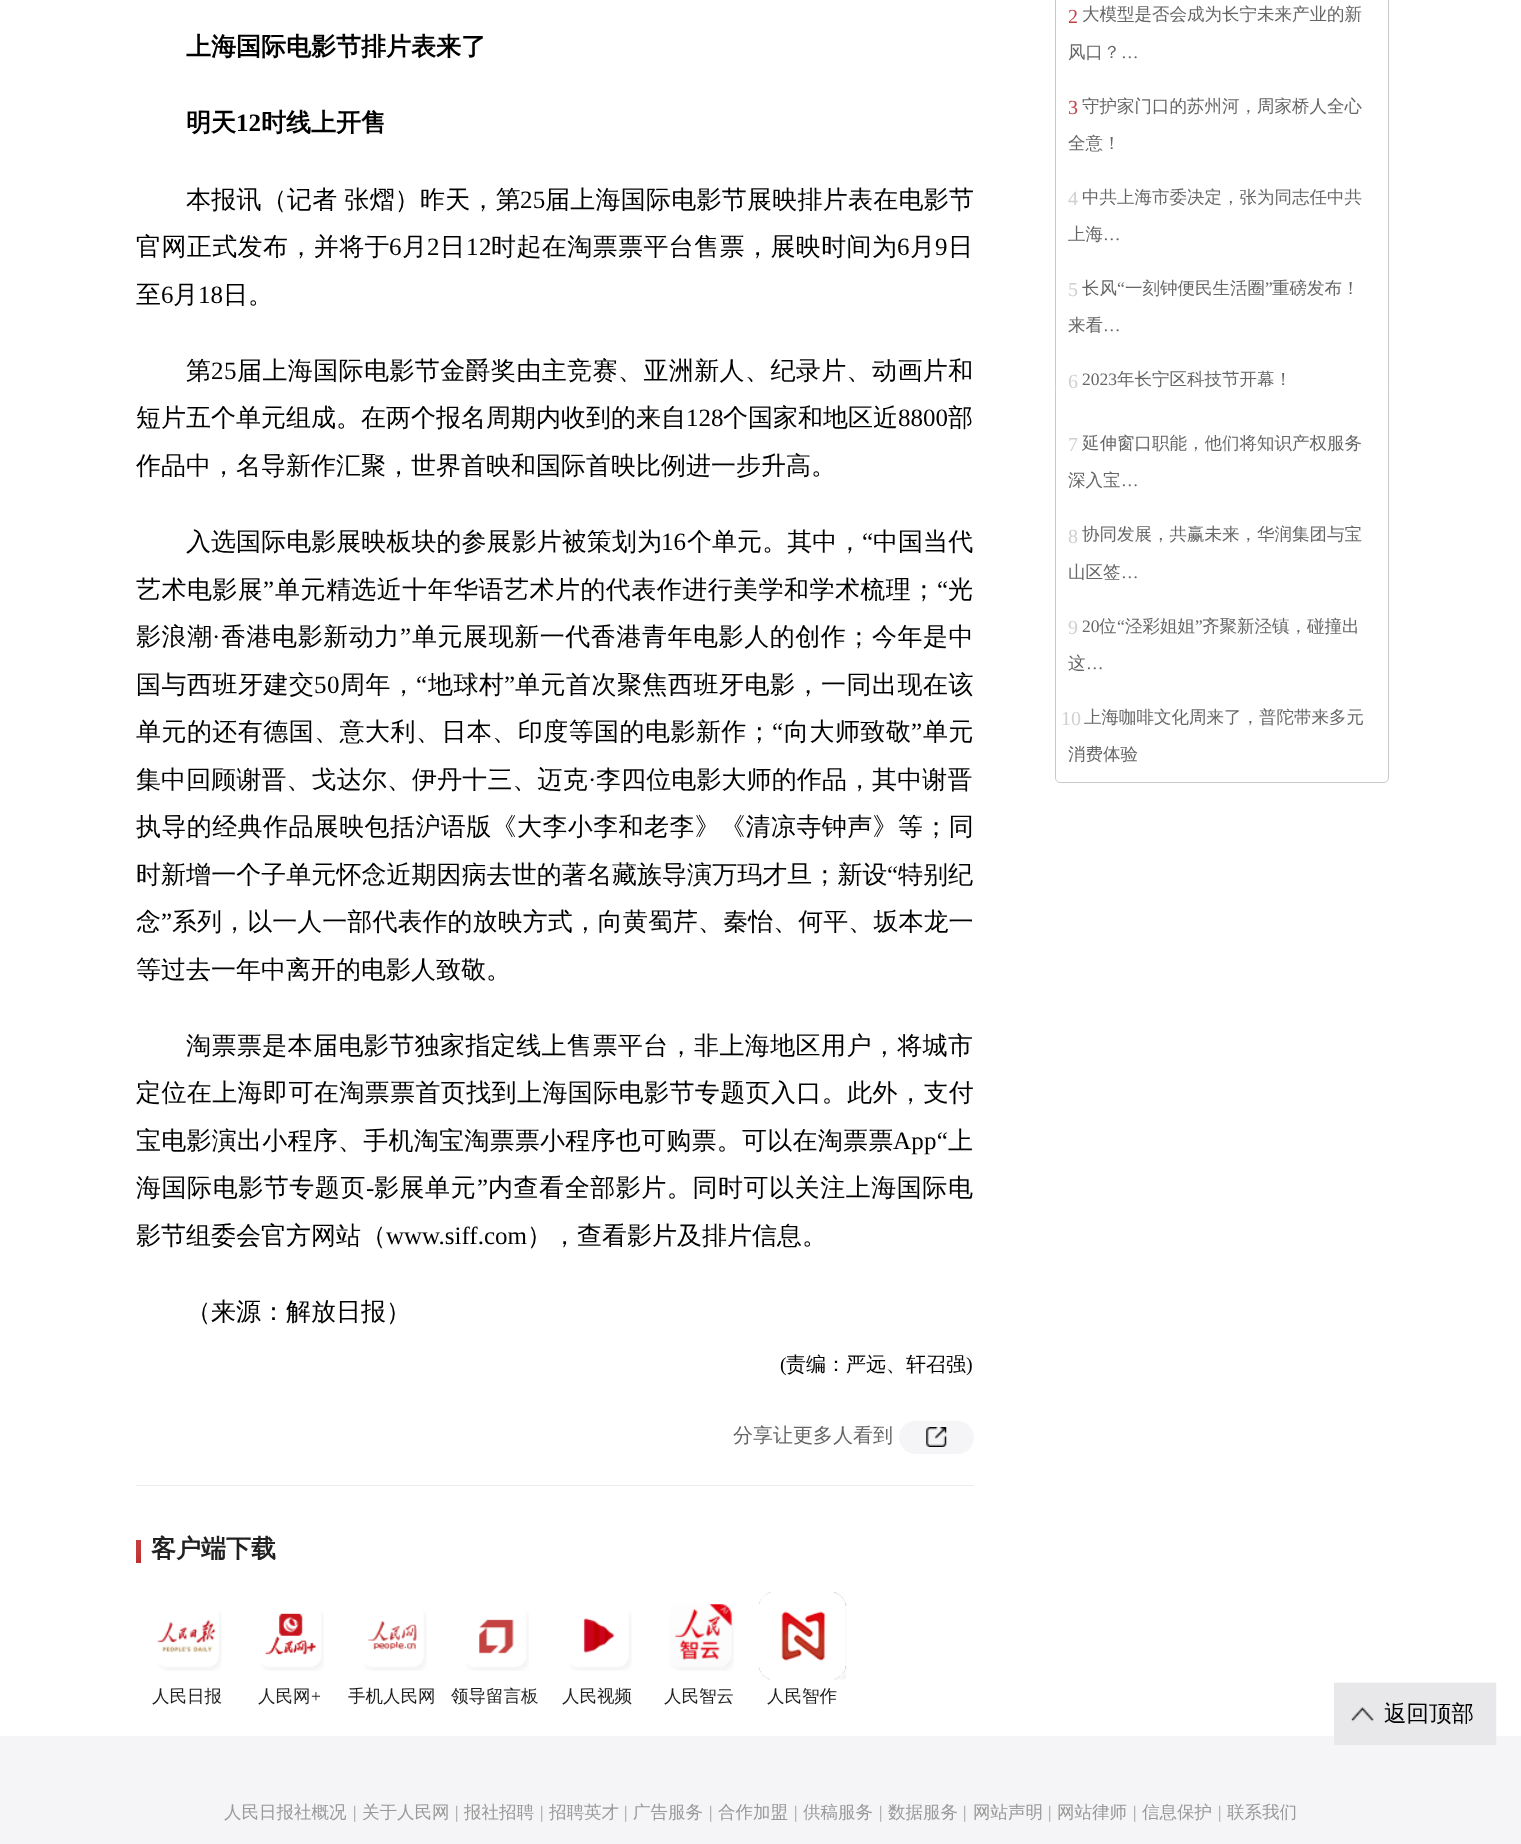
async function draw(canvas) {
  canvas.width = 1521
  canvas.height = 1844
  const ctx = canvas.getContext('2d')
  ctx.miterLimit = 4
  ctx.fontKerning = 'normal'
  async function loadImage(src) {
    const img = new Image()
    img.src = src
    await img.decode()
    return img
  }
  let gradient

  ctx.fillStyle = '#fff'
  ctx.fillRect(0, 0, 1521, 1844)
  ctx.font = 'bold 25px WenQuanYi Zen Hei'
  ctx.fillStyle = '#000'
  ctx.fillText('上海国际电影节排片表来了', 186, 55)
  ctx.fillText('明天', 186, 131)
  ctx.font = 'bold 25px Liberation Serif'
  ctx.fillText('12', 236, 131)
  ctx.font = 'bold 25px WenQuanYi Zen Hei'
  ctx.fillText('时线上开售', 261, 131)
  ctx.letterSpacing = '0.25px'
  ctx.wordSpacing = '-1px'
  ctx.font = '500 25px WenQuanYi Zen Hei'
  ctx.fillText('本报讯（记者 张熠）昨天，第', 186, 208)
  ctx.wordSpacing = '0px'
  ctx.font = '25px Liberation Serif'
  ctx.fillText('25', 520, 208)
  ctx.font = '500 25px WenQuanYi Zen Hei'
  ctx.fillText('届上海国际电影节展映排片表在电影节', 545, 208)
  ctx.letterSpacing = '0.4px'
  ctx.fillText('官网正式发布，并将于', 136, 255)
  ctx.font = '25px Liberation Serif'
  ctx.fillText('6', 389, 255)
  ctx.font = '500 25px WenQuanYi Zen Hei'
  ctx.fillText('月', 402, 255)
  ctx.font = '25px Liberation Serif'
  ctx.fillText('2', 427, 255)
  ctx.font = '500 25px WenQuanYi Zen Hei'
  ctx.fillText('日', 440, 255)
  ctx.font = '25px Liberation Serif'
  ctx.fillText('12', 466, 255)
  ctx.font = '500 25px WenQuanYi Zen Hei'
  ctx.fillText('时起在淘票票平台售票，展映时间为', 491, 255)
  ctx.font = '25px Liberation Serif'
  ctx.fillText('6', 897, 255)
  ctx.font = '500 25px WenQuanYi Zen Hei'
  ctx.fillText('月', 910, 255)
  ctx.font = '25px Liberation Serif'
  ctx.fillText('9', 935, 255)
  ctx.font = '500 25px WenQuanYi Zen Hei'
  ctx.fillText('日', 948, 255)
  ctx.letterSpacing = '0px'
  ctx.fillText('至', 136, 303)
  ctx.font = '25px Liberation Serif'
  ctx.fillText('6', 161, 303)
  ctx.font = '500 25px WenQuanYi Zen Hei'
  ctx.fillText('月', 173, 303)
  ctx.font = '25px Liberation Serif'
  ctx.fillText('18', 198, 303)
  ctx.font = '500 25px WenQuanYi Zen Hei'
  ctx.fillText('日。', 223, 303)
  ctx.letterSpacing = '0.4px'
  ctx.fillText('第', 186, 379)
  ctx.font = '25px Liberation Serif'
  ctx.fillText('25', 211, 379)
  ctx.font = '500 25px WenQuanYi Zen Hei'
  ctx.fillText('届上海国际电影节金爵奖由主竞赛、亚洲新人、纪录片、动画片和', 237, 379)
  ctx.letterSpacing = '0px'
  ctx.fillText('短片五个单元组成。在两个报名周期内收到的来自', 136, 426)
  ctx.font = '25px Liberation Serif'
  ctx.fillText('128', 686, 426)
  ctx.font = '500 25px WenQuanYi Zen Hei'
  ctx.fillText('个国家和地区近', 723, 426)
  ctx.font = '25px Liberation Serif'
  ctx.fillText('8800', 898, 426)
  ctx.font = '500 25px WenQuanYi Zen Hei'
  ctx.fillText('部', 948, 426)
  ctx.fillText('作品中，名导新作汇聚，世界首映和国际首映比例进一步升高。', 136, 474)
  ctx.letterSpacing = '0.05px'
  ctx.fillText('入选国际电影展映板块的参展影片被策划为', 186, 550)
  ctx.font = '25px Liberation Serif'
  ctx.fillText('16', 661, 550)
  ctx.font = '500 25px WenQuanYi Zen Hei'
  ctx.fillText('个单元。其中，', 687, 550)
  ctx.font = '25px Liberation Serif'
  ctx.fillText('“', 862, 550)
  ctx.font = '500 25px WenQuanYi Zen Hei'
  ctx.fillText('中国当代', 873, 550)
  ctx.letterSpacing = '0.45px'
  ctx.fillText('艺术电影展', 136, 598)
  ctx.font = '25px Liberation Serif'
  ctx.fillText('”', 263, 598)
  ctx.font = '500 25px WenQuanYi Zen Hei'
  ctx.fillText('单元精选近十年华语艺术片的代表作进行美学和学术梳理；', 275, 598)
  ctx.font = '25px Liberation Serif'
  ctx.fillText('“', 937, 598)
  ctx.font = '500 25px WenQuanYi Zen Hei'
  ctx.fillText('光', 948, 598)
  ctx.letterSpacing = '0.55px'
  ctx.fillText('影浪潮', 136, 645)
  ctx.fillText('香港电影新动力', 221, 645)
  ctx.font = '25px Liberation Serif'
  ctx.fillText('”', 400, 645)
  ctx.font = '500 25px WenQuanYi Zen Hei'
  ctx.fillText('单元展现新一代香港青年电影人的创作；今年是中', 412, 645)
  ctx.font = '25px Liberation Serif'
  ctx.fillText('·', 212, 645)
  ctx.letterSpacing = '0.5px'
  ctx.font = '500 25px WenQuanYi Zen Hei'
  ctx.fillText('国与西班牙建交', 136, 693)
  ctx.font = '25px Liberation Serif'
  ctx.fillText('50', 314, 693)
  ctx.font = '500 25px WenQuanYi Zen Hei'
  ctx.fillText('周年，', 340, 693)
  ctx.font = '25px Liberation Serif'
  ctx.fillText('“', 416, 693)
  ctx.font = '500 25px WenQuanYi Zen Hei'
  ctx.fillText('地球村', 428, 693)
  ctx.font = '25px Liberation Serif'
  ctx.fillText('”', 504, 693)
  ctx.font = '500 25px WenQuanYi Zen Hei'
  ctx.fillText('单元首次聚焦西班牙电影，一同出现在该', 515, 693)
  ctx.letterSpacing = '0.45px'
  ctx.fillText('单元的还有德国、意大利、日本、印度等国的电影新作；', 136, 740)
  ctx.font = '25px Liberation Serif'
  ctx.fillText('“', 772, 740)
  ctx.font = '500 25px WenQuanYi Zen Hei'
  ctx.fillText('向大师致敬', 784, 740)
  ctx.font = '25px Liberation Serif'
  ctx.fillText('”', 911, 740)
  ctx.font = '500 25px WenQuanYi Zen Hei'
  ctx.fillText('单元', 923, 740)
  ctx.letterSpacing = '0.1px'
  ctx.fillText('集中回顾谢晋、戈达尔、伊丹十三、迈克', 136, 788)
  ctx.font = '25px Liberation Serif'
  ctx.fillText('·', 588, 788)
  ctx.font = '500 25px WenQuanYi Zen Hei'
  ctx.fillText('李四位电影大师的作品，其中谢晋', 596, 788)
  ctx.letterSpacing = '0.4px'
  ctx.fillText('执导的经典作品展映包括沪语版《大李小李和老李》《清凉寺钟声》等；同', 136, 835)
  ctx.letterSpacing = '0.05px'
  ctx.fillText('时新增一个子单元怀念近期因病去世的著名藏族导演万玛才旦；新设', 136, 883)
  ctx.font = '25px Liberation Serif'
  ctx.fillText('“', 887, 883)
  ctx.font = '500 25px WenQuanYi Zen Hei'
  ctx.fillText('特别纪', 898, 883)
  ctx.fillText('念', 136, 930)
  ctx.font = '25px Liberation Serif'
  ctx.fillText('”', 161, 930)
  ctx.font = '500 25px WenQuanYi Zen Hei'
  ctx.fillText('系列，以一人一部代表作的放映方式，向黄蜀芹、秦怡、何平、坂本龙一', 172, 930)
  ctx.letterSpacing = '0px'
  ctx.fillText('等过去一年中离开的电影人致敬。', 136, 978)
  ctx.letterSpacing = '0.4px'
  ctx.fillText('淘票票是本届电影节独家指定线上售票平台，非上海地区用户，将城市', 186, 1054)
  ctx.fillText('定位在上海即可在淘票票首页找到上海国际电影节专题页入口。此外，支付', 136, 1101)
  ctx.letterSpacing = '0.25px'
  ctx.fillText('宝电影演出小程序、手机淘宝淘票票小程序也可购票。可以在淘票票', 136, 1149)
  ctx.font = '25px Liberation Serif'
  ctx.fillText('App“', 893, 1149)
  ctx.font = '500 25px WenQuanYi Zen Hei'
  ctx.fillText('上', 948, 1149)
  ctx.letterSpacing = '0.55px'
  ctx.fillText('海国际电影节专题页', 136, 1196)
  ctx.fillText('影展单元', 374, 1196)
  ctx.font = '25px Liberation Serif'
  ctx.fillText('”', 477, 1196)
  ctx.font = '500 25px WenQuanYi Zen Hei'
  ctx.fillText('内查看全部影片。同时可以关注上海国际电', 488, 1196)
  ctx.font = '25px Liberation Serif'
  ctx.fillText('-', 366, 1196)
  ctx.letterSpacing = '0px'
  ctx.font = '500 25px WenQuanYi Zen Hei'
  ctx.fillText('影节组委会官方网站（', 136, 1244)
  ctx.font = '25px Liberation Serif'
  ctx.fillText('www.siff.com', 386, 1244)
  ctx.font = '500 25px WenQuanYi Zen Hei'
  ctx.fillText('），查看影片及排片信息。', 527, 1244)
  ctx.fillText('（来源：解放日报）', 186, 1320)
  ctx.font = '20px Liberation Serif'
  ctx.fillText('(', 780, 1371)
  ctx.font = '500 20px WenQuanYi Zen Hei'
  ctx.fillText('责编：严远、轩召强', 786, 1371)
  ctx.font = '20px Liberation Serif'
  ctx.fillText(')', 966, 1371)
  ctx.font = '500 20px WenQuanYi Zen Hei'
  ctx.fillStyle = '#666'
  ctx.fillText('分享让更多人看到', 733, 1442)
  ctx.fillStyle = '#f5f5f7'
  ctx.beginPath()
  ctx.roundRect(899, 1421, 75, 33, 16.5)
  ctx.fill()
  ctx.drawImage(await loadImage('image0.png'), 926, 1427, 21, 20)
  ctx.fillStyle = '#ececec'
  ctx.fillRect(136, 1485, 838, 1)
  gradient = ctx.createLinearGradient(132, 1544, 146, 1558)
  gradient.addColorStop(0, '#c53d3d')
  gradient.addColorStop(0.49, '#c43a3a')
  gradient.addColorStop(1, '#bb2d2d')
  ctx.fillStyle = gradient
  ctx.fillRect(136, 1540, 5, 23)
  ctx.font = 'bold 25px WenQuanYi Zen Hei'
  ctx.fillStyle = '#212121'
  ctx.fillText('客户端下载', 151, 1557)
  ctx.drawImage(await loadImage('image1.png'), 157, 1611, 65, 60)
  ctx.font = '500 17.5px WenQuanYi Zen Hei'
  ctx.fillText('人民日报', 152, 1702)
  ctx.drawImage(await loadImage('image2.png'), 261, 1612, 63, 59)
  ctx.fillText('人民网', 258, 1702)
  ctx.font = '17.5px Liberation Serif'
  ctx.fillText('+', 311, 1702)
  ctx.drawImage(await loadImage('image3.png'), 364, 1611, 63, 60)
  ctx.font = '500 17.5px WenQuanYi Zen Hei'
  ctx.fillText('手机人民网', 348, 1702)
  ctx.drawImage(await loadImage('image4.png'), 466, 1612, 63, 59)
  ctx.fillText('领导留言板', 451, 1702)
  ctx.drawImage(await loadImage('image5.png'), 569, 1611, 63, 60)
  ctx.fillText('人民视频', 562, 1702)
  ctx.drawImage(await loadImage('image6.png'), 669, 1604, 65, 67)
  ctx.fillText('人民智云', 664, 1702)
  ctx.drawImage(await loadImage('image7.png'), 758, 1592, 89, 88)
  ctx.fillText('人民智作', 767, 1702)
  ctx.beginPath()
  ctx.roundRect(1055.5, -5.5, 333, 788, 4.5)
  ctx.strokeStyle = '#c9c9c9'
  ctx.stroke()
  ctx.font = '20px Liberation Serif'
  ctx.fillStyle = '#c54242'
  ctx.fillText('2', 1068, 23)
  ctx.font = '500 17.5px WenQuanYi Zen Hei'
  ctx.fillStyle = '#666'
  ctx.fillText('大模型是否会成为长宁未来产业的新', 1082, 20)
  ctx.fillText('风口？', 1068, 58)
  ctx.font = '17.5px Liberation Serif'
  ctx.fillText('…', 1121, 58)
  ctx.font = '20px Liberation Serif'
  ctx.fillStyle = '#c54242'
  ctx.fillText('3', 1068, 114)
  ctx.font = '500 17.5px WenQuanYi Zen Hei'
  ctx.fillStyle = '#666'
  ctx.fillText('守护家门口的苏州河，周家桥人全心', 1082, 112)
  ctx.fillText('全意！', 1068, 149)
  ctx.font = '20px Liberation Serif'
  ctx.fillStyle = '#d0d0d0'
  ctx.fillText('4', 1068, 205)
  ctx.font = '500 17.5px WenQuanYi Zen Hei'
  ctx.fillStyle = '#666'
  ctx.fillText('中共上海市委决定，张为同志任中共', 1082, 203)
  ctx.fillText('上海', 1068, 240)
  ctx.font = '17.5px Liberation Serif'
  ctx.fillText('…', 1103, 240)
  ctx.font = '20px Liberation Serif'
  ctx.fillStyle = '#d0d0d0'
  ctx.fillText('5', 1068, 296)
  ctx.font = '500 17.5px WenQuanYi Zen Hei'
  ctx.fillStyle = '#666'
  ctx.fillText('长风', 1082, 294)
  ctx.font = '17.5px Liberation Serif'
  ctx.fillText('“', 1117, 294)
  ctx.font = '500 17.5px WenQuanYi Zen Hei'
  ctx.fillText('一刻钟便民生活圈', 1125, 294)
  ctx.font = '17.5px Liberation Serif'
  ctx.fillText('”', 1265, 294)
  ctx.font = '500 17.5px WenQuanYi Zen Hei'
  ctx.fillText('重磅发布！', 1272, 294)
  ctx.fillText('来看', 1068, 331)
  ctx.font = '17.5px Liberation Serif'
  ctx.fillText('…', 1103, 331)
  ctx.font = '20px Liberation Serif'
  ctx.fillStyle = '#d0d0d0'
  ctx.fillText('6', 1068, 388)
  ctx.font = '17.5px Liberation Serif'
  ctx.fillStyle = '#666'
  ctx.fillText('2023', 1082, 385)
  ctx.font = '500 17.5px WenQuanYi Zen Hei'
  ctx.fillText('年长宁区科技节开幕！', 1117, 385)
  ctx.font = '20px Liberation Serif'
  ctx.fillStyle = '#d0d0d0'
  ctx.fillText('7', 1068, 451)
  ctx.font = '500 17.5px WenQuanYi Zen Hei'
  ctx.fillStyle = '#666'
  ctx.fillText('延伸窗口职能，他们将知识产权服务', 1082, 449)
  ctx.fillText('深入宝', 1068, 486)
  ctx.font = '17.5px Liberation Serif'
  ctx.fillText('…', 1121, 486)
  ctx.font = '20px Liberation Serif'
  ctx.fillStyle = '#d0d0d0'
  ctx.fillText('8', 1068, 543)
  ctx.font = '500 17.5px WenQuanYi Zen Hei'
  ctx.fillStyle = '#666'
  ctx.fillText('协同发展，共赢未来，华润集团与宝', 1082, 540)
  ctx.fillText('山区签', 1068, 578)
  ctx.font = '17.5px Liberation Serif'
  ctx.fillText('…', 1121, 578)
  ctx.font = '20px Liberation Serif'
  ctx.fillStyle = '#d0d0d0'
  ctx.fillText('9', 1068, 634)
  ctx.font = '17.5px Liberation Serif'
  ctx.fillStyle = '#666'
  ctx.fillText('20', 1082, 632)
  ctx.font = '500 17.5px WenQuanYi Zen Hei'
  ctx.fillText('位', 1099, 632)
  ctx.font = '17.5px Liberation Serif'
  ctx.fillText('“', 1117, 632)
  ctx.font = '500 17.5px WenQuanYi Zen Hei'
  ctx.fillText('泾彩姐姐', 1125, 632)
  ctx.font = '17.5px Liberation Serif'
  ctx.fillText('”', 1195, 632)
  ctx.font = '500 17.5px WenQuanYi Zen Hei'
  ctx.fillText('齐聚新泾镇，碰撞出', 1202, 632)
  ctx.fillText('这', 1068, 669)
  ctx.font = '17.5px Liberation Serif'
  ctx.fillText('…', 1086, 669)
  ctx.font = '20px Liberation Serif'
  ctx.fillStyle = '#d0d0d0'
  ctx.fillText('10', 1061, 725)
  ctx.font = '500 17.5px WenQuanYi Zen Hei'
  ctx.fillStyle = '#666'
  ctx.fillText('上海咖啡文化周来了，普陀带来多元', 1084, 723)
  ctx.fillText('消费体验', 1068, 760)
  ctx.fillStyle = '#f5f5f7'
  ctx.fillRect(0, 1736, 1521, 108)
  ctx.fillStyle = '#999'
  ctx.fillText('人民日报社概况', 224, 1818)
  ctx.font = '17.5px Liberation Serif'
  ctx.fillText('|', 353, 1818)
  ctx.font = '500 17.5px WenQuanYi Zen Hei'
  ctx.fillText('关于人民网', 362, 1818)
  ctx.font = '17.5px Liberation Serif'
  ctx.fillText('|', 455, 1818)
  ctx.font = '500 17.5px WenQuanYi Zen Hei'
  ctx.fillText('报社招聘', 464, 1818)
  ctx.font = '17.5px Liberation Serif'
  ctx.fillText('|', 540, 1818)
  ctx.font = '500 17.5px WenQuanYi Zen Hei'
  ctx.fillText('招聘英才', 549, 1818)
  ctx.font = '17.5px Liberation Serif'
  ctx.fillText('|', 624, 1818)
  ctx.font = '500 17.5px WenQuanYi Zen Hei'
  ctx.fillText('广告服务', 633, 1818)
  ctx.font = '17.5px Liberation Serif'
  ctx.fillText('|', 709, 1818)
  ctx.font = '500 17.5px WenQuanYi Zen Hei'
  ctx.fillText('合作加盟', 718, 1818)
  ctx.font = '17.5px Liberation Serif'
  ctx.fillText('|', 794, 1818)
  ctx.font = '500 17.5px WenQuanYi Zen Hei'
  ctx.fillText('供稿服务', 803, 1818)
  ctx.font = '17.5px Liberation Serif'
  ctx.fillText('|', 879, 1818)
  ctx.font = '500 17.5px WenQuanYi Zen Hei'
  ctx.fillText('数据服务', 888, 1818)
  ctx.font = '17.5px Liberation Serif'
  ctx.fillText('|', 963, 1818)
  ctx.font = '500 17.5px WenQuanYi Zen Hei'
  ctx.fillText('网站声明', 973, 1818)
  ctx.font = '17.5px Liberation Serif'
  ctx.fillText('|', 1048, 1818)
  ctx.font = '500 17.5px WenQuanYi Zen Hei'
  ctx.fillText('网站律师', 1057, 1818)
  ctx.font = '17.5px Liberation Serif'
  ctx.fillText('|', 1133, 1818)
  ctx.font = '500 17.5px WenQuanYi Zen Hei'
  ctx.fillText('信息保护', 1142, 1818)
  ctx.font = '17.5px Liberation Serif'
  ctx.fillText('|', 1218, 1818)
  ctx.font = '500 17.5px WenQuanYi Zen Hei'
  ctx.fillText('联系我们', 1227, 1818)
  ctx.drawImage(await loadImage('image8.png'), 1334, 1682, 163, 63)
  ctx.font = '500 22.5px WenQuanYi Zen Hei'
  ctx.fillStyle = '#000'
  ctx.fillText('返回顶部', 1384, 1721)
}

draw(document.querySelector('canvas'))
